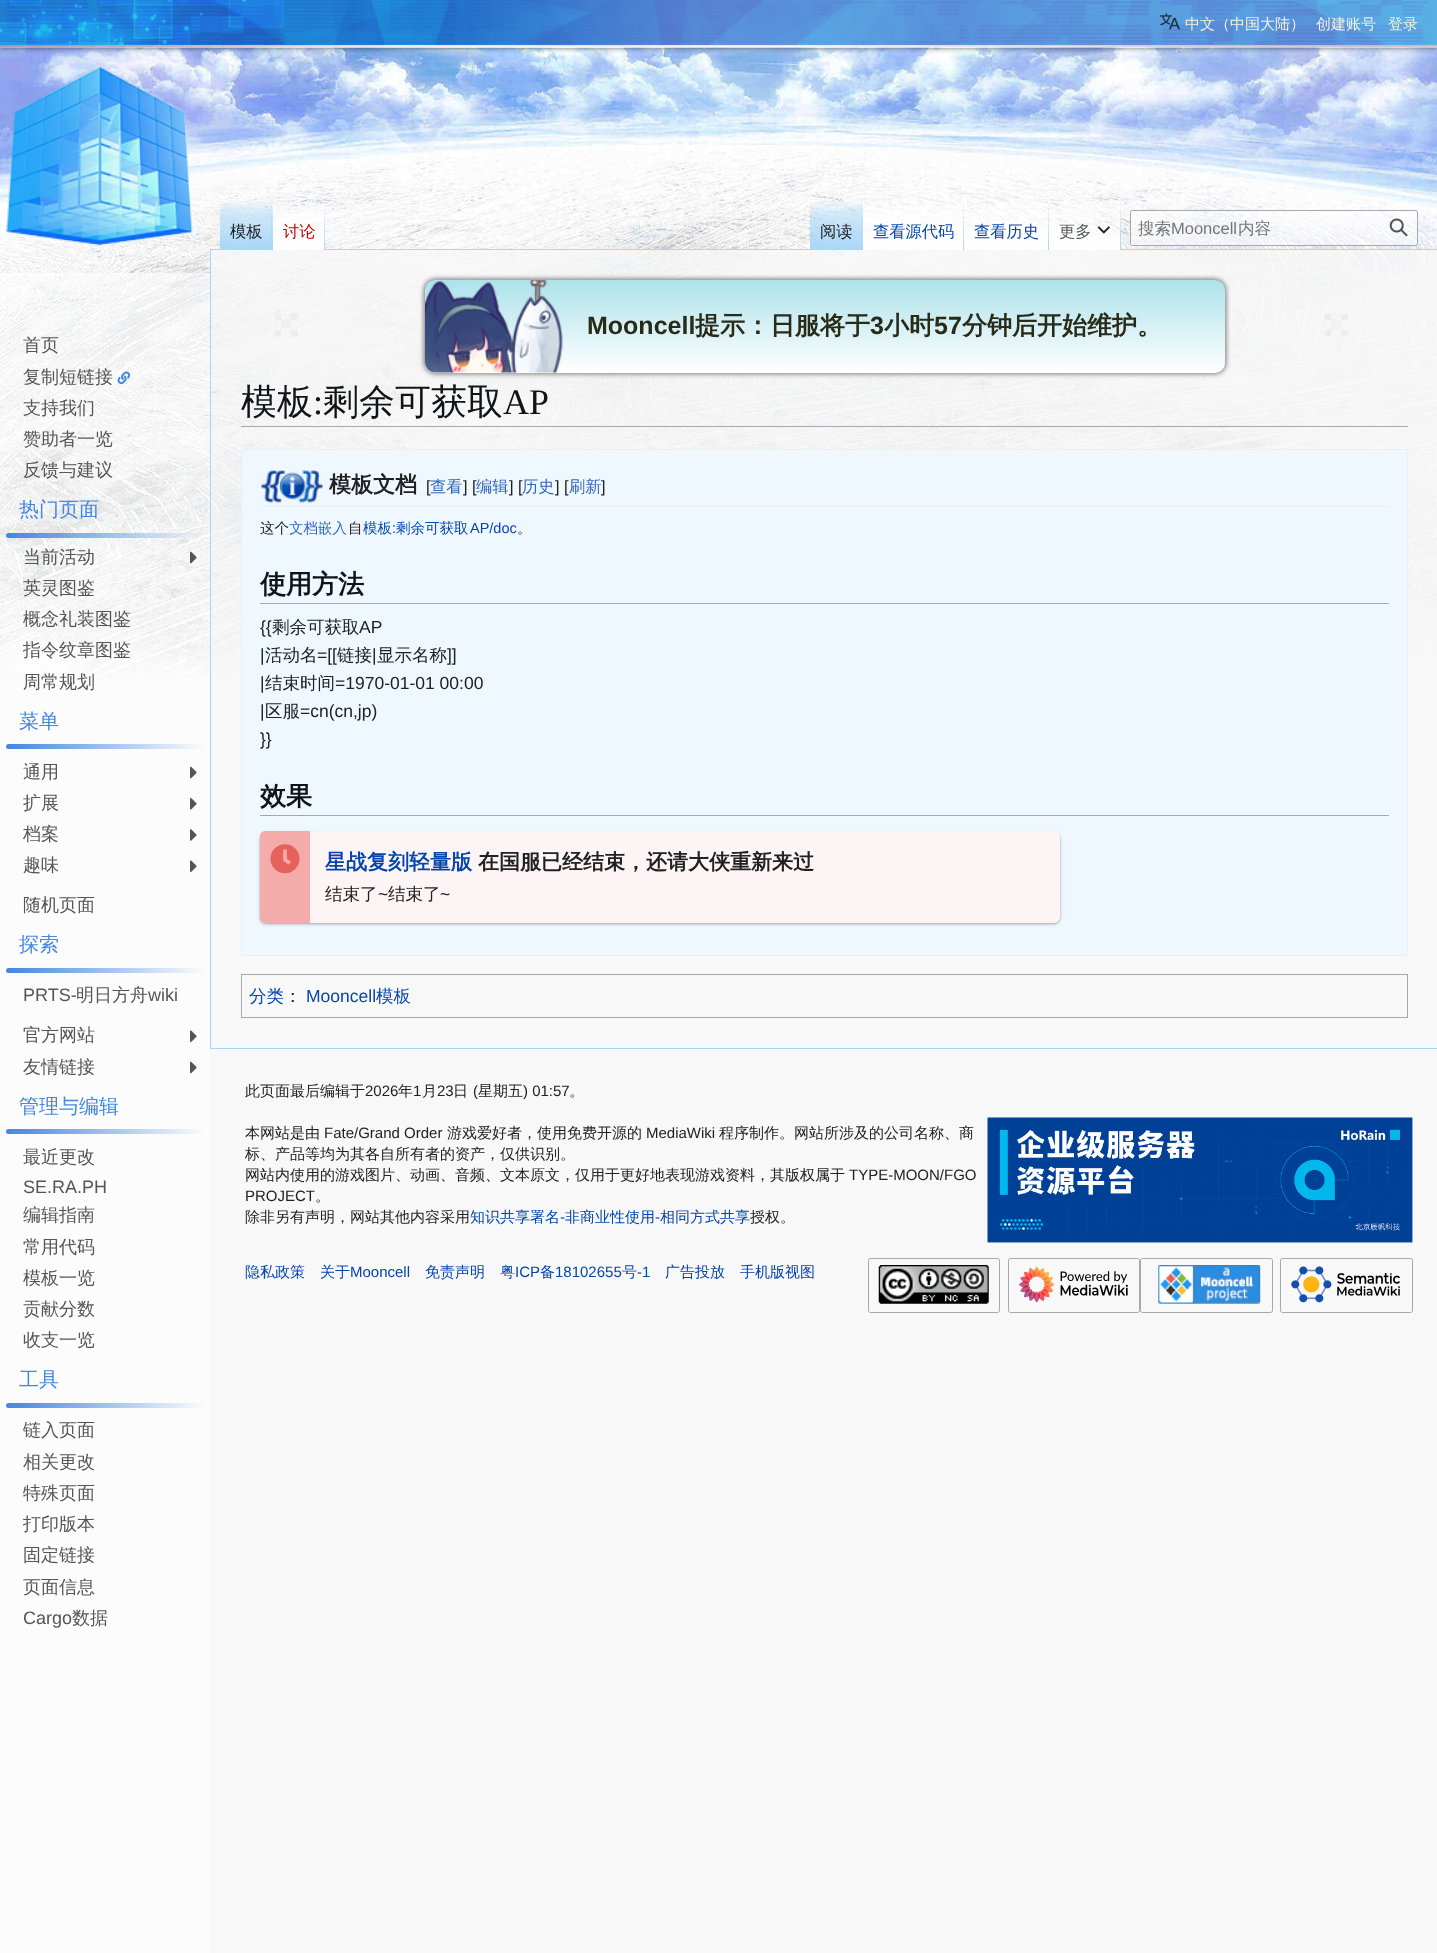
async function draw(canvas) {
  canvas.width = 1437
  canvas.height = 1953
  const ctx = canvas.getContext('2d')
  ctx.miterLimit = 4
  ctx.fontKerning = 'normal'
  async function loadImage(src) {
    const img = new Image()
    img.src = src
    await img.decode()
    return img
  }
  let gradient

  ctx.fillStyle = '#f8f8f8'
  ctx.fillRect(0, 0, 1437, 1953)
  ctx.drawImage(await loadImage('image0.png'), 0, 47, 1437, 636)
  ctx.drawImage(await loadImage('image1.png'), 0, 0, 1437, 48)
  ctx.save()
  ctx.beginPath()
  ctx.moveTo(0, 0)
  ctx.lineTo(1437, 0)
  ctx.lineTo(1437, 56)
  ctx.lineTo(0, 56)
  ctx.closePath()
  ctx.moveTo(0, 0)
  ctx.lineTo(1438, 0)
  ctx.lineTo(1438, 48)
  ctx.lineTo(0, 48)
  ctx.closePath()
  ctx.clip('evenodd')
  ctx.fillStyle = '#00000066'
  ctx.filter = 'blur(2px)'
  ctx.beginPath()
  ctx.rect(0, 1, 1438, 48)
  ctx.fill()
  ctx.filter = 'none'
  ctx.restore()
  ctx.drawImage(await loadImage('image2.png'), 1160, 13, 20, 17)
  ctx.font = '500 15px WenQuanYi Zen Hei'
  ctx.fillStyle = '#f5f1dd'
  ctx.fillText('中文（中国大陆）', 1185, 29)
  ctx.fillText('创建账号', 1316, 29)
  ctx.fillText('登录', 1388, 29)
  gradient = ctx.createLinearGradient(246, 200, 246, 250)
  gradient.addColorStop(0, '#a7d7f900')
  gradient.addColorStop(0.3, '#a7d7f980')
  gradient.addColorStop(1, '#a7d7f9')
  ctx.fillStyle = gradient
  ctx.fillRect(220, 201, 53, 48)
  ctx.fillStyle = '#a7d7f9'
  ctx.fillRect(210, 249, 1227, 1)
  gradient = ctx.createLinearGradient(272, 200, 272, 250)
  gradient.addColorStop(0, '#a7d7f900')
  gradient.addColorStop(1, '#a7d7f9')
  ctx.fillStyle = gradient
  ctx.fillRect(271, 200, 1, 50)
  ctx.font = '500 16.25px WenQuanYi Zen Hei'
  ctx.fillStyle = '#202122'
  ctx.fillText('模板', 230, 237)
  gradient = ctx.createLinearGradient(299, 200, 299, 250)
  gradient.addColorStop(0, '#ffffff00')
  gradient.addColorStop(0.3, '#ffffff80')
  gradient.addColorStop(1, '#fff')
  ctx.fillStyle = gradient
  ctx.fillRect(273, 201, 52, 49)
  gradient = ctx.createLinearGradient(324, 200, 324, 250)
  gradient.addColorStop(0, '#a7d7f900')
  gradient.addColorStop(1, '#a7d7f9')
  ctx.fillStyle = gradient
  ctx.fillRect(324, 200, 1, 50)
  ctx.fillStyle = '#ba0000'
  ctx.fillText('讨论', 283, 237)
  gradient = ctx.createLinearGradient(836, 200, 836, 250)
  gradient.addColorStop(0, '#a7d7f900')
  gradient.addColorStop(0.3, '#a7d7f980')
  gradient.addColorStop(1, '#a7d7f9')
  ctx.fillStyle = gradient
  ctx.fillRect(810, 201, 53, 48)
  gradient = ctx.createLinearGradient(862, 200, 862, 250)
  gradient.addColorStop(0, '#a7d7f900')
  gradient.addColorStop(1, '#a7d7f9')
  ctx.fillStyle = gradient
  ctx.fillRect(861, 200, 1, 50)
  ctx.fillStyle = '#202122'
  ctx.fillText('阅读', 820, 237)
  gradient = ctx.createLinearGradient(913, 200, 913, 250)
  gradient.addColorStop(0, '#ffffff00')
  gradient.addColorStop(0.3, '#ffffff80')
  gradient.addColorStop(1, '#fff')
  ctx.fillStyle = gradient
  ctx.fillRect(863, 206, 101, 44)
  gradient = ctx.createLinearGradient(963, 200, 963, 250)
  gradient.addColorStop(0, '#a7d7f900')
  gradient.addColorStop(1, '#a7d7f9')
  ctx.fillStyle = gradient
  ctx.fillRect(963, 200, 1, 50)
  ctx.fillStyle = '#0645ad'
  ctx.fillText('查看源代码', 873, 237)
  gradient = ctx.createLinearGradient(1006, 200, 1006, 250)
  gradient.addColorStop(0, '#ffffff00')
  gradient.addColorStop(0.3, '#ffffff80')
  gradient.addColorStop(1, '#fff')
  ctx.fillStyle = gradient
  ctx.fillRect(964, 206, 85, 44)
  gradient = ctx.createLinearGradient(1048, 200, 1048, 250)
  gradient.addColorStop(0, '#a7d7f900')
  gradient.addColorStop(1, '#a7d7f9')
  ctx.fillStyle = gradient
  ctx.fillRect(1048, 200, 1, 50)
  ctx.fillStyle = '#0645ad'
  ctx.fillText('查看历史', 974, 237)
  gradient = ctx.createLinearGradient(1084, 200, 1084, 250)
  gradient.addColorStop(0, '#ffffff00')
  gradient.addColorStop(0.3, '#ffffff80')
  gradient.addColorStop(1, '#fff')
  ctx.fillStyle = gradient
  ctx.fillRect(1049, 203, 71, 47)
  gradient = ctx.createLinearGradient(1121, 200, 1121, 250)
  gradient.addColorStop(0, '#a7d7f900')
  gradient.addColorStop(1, '#a7d7f9')
  ctx.fillStyle = gradient
  ctx.fillRect(1120, 200, 1, 50)
  ctx.fillStyle = '#54595d'
  ctx.fillText('更多', 1059, 237)
  ctx.drawImage(await loadImage('image3.png'), 1097, 226, 13, 8)
  ctx.fillStyle = '#ffffff80'
  ctx.beginPath()
  ctx.roundRect(1130.5, 210.5, 287, 35, 2)
  ctx.fill()
  ctx.strokeStyle = '#a2a9b1'
  ctx.stroke()
  ctx.font = '500 16.5px WenQuanYi Zen Hei'
  ctx.fillStyle = '#72777d'
  ctx.fillText('搜索', 1138, 234)
  ctx.font = '16.5px Liberation Sans'
  ctx.fillText('Mooncell', 1171, 234)
  ctx.font = '500 16.5px WenQuanYi Zen Hei'
  ctx.fillText('内容', 1238, 234)
  ctx.drawImage(await loadImage('image4.png'), 1389, 218, 19, 19)
  ctx.drawImage(await loadImage('image5.png'), 6, 67, 187, 179)
  ctx.fillStyle = '#ffffff99'
  ctx.fillRect(0, 273, 210, 1680)
  ctx.font = '500 18px WenQuanYi Zen Hei'
  ctx.fillStyle = '#555'
  ctx.fillText('首页', 23, 351)
  ctx.fillText('复制短链接', 23, 383)
  ctx.drawImage(await loadImage('image6.png'), 117, 371, 14, 14)
  ctx.fillText('支持我们', 23, 414)
  ctx.fillText('赞助者一览', 23, 445)
  ctx.fillText('反馈与建议', 23, 476)
  ctx.font = '500 20px WenQuanYi Zen Hei'
  ctx.fillStyle = '#4487df'
  ctx.fillText('热门页面', 19, 516)
  ctx.fillStyle = '#f8f8f8cc'
  ctx.fillRect(211, 250, 1226, 433)
  ctx.fillStyle = '#a7d7f9'
  ctx.fillRect(210, 1048, 1227, 1)
  ctx.fillRect(210, 249, 1, 800)
  gradient = ctx.createLinearGradient(6.2, 535, 216, 535)
  gradient.addColorStop(0, '#4487df')
  gradient.addColorStop(0.95, '#4487df00')
  ctx.fillStyle = gradient
  ctx.beginPath()
  ctx.roundRect(6, 533, 210, 5, 2.5)
  ctx.fill()
  ctx.font = '500 18px WenQuanYi Zen Hei'
  ctx.fillStyle = '#555'
  ctx.fillText('当前活动', 23, 563)
  ctx.drawImage(await loadImage('image7.png'), 190, 551, 7, 13)
  ctx.fillText('英灵图鉴', 23, 594)
  ctx.fillText('概念礼装图鉴', 23, 625)
  ctx.fillText('指令纹章图鉴', 23, 656)
  ctx.fillText('周常规划', 23, 688)
  ctx.font = '500 20px WenQuanYi Zen Hei'
  ctx.fillStyle = '#4487df'
  ctx.fillText('菜单', 19, 728)
  gradient = ctx.createLinearGradient(6.2, 746, 216, 746)
  gradient.addColorStop(0, '#4487df')
  gradient.addColorStop(0.95, '#4487df00')
  ctx.fillStyle = gradient
  ctx.beginPath()
  ctx.roundRect(6, 744, 210, 5, 2.5)
  ctx.fill()
  ctx.font = '500 18px WenQuanYi Zen Hei'
  ctx.fillStyle = '#555'
  ctx.fillText('通用', 23, 778)
  ctx.drawImage(await loadImage('image8.png'), 190, 766, 7, 13)
  ctx.fillText('扩展', 23, 809)
  ctx.drawImage(await loadImage('image9.png'), 190, 798, 7, 12)
  ctx.fillText('档案', 23, 840)
  ctx.drawImage(await loadImage('image10.png'), 190, 829, 7, 12)
  ctx.fillText('趣味', 23, 871)
  ctx.drawImage(await loadImage('image11.png'), 190, 860, 7, 12)
  ctx.fillText('随机页面', 23, 911)
  ctx.font = '500 20px WenQuanYi Zen Hei'
  ctx.fillStyle = '#4487df'
  ctx.fillText('探索', 19, 951)
  gradient = ctx.createLinearGradient(6.2, 970, 216, 970)
  gradient.addColorStop(0, '#4487df')
  gradient.addColorStop(0.95, '#4487df00')
  ctx.fillStyle = gradient
  ctx.beginPath()
  ctx.roundRect(6, 968, 210, 5, 2.5)
  ctx.fill()
  ctx.font = '18px Liberation Sans'
  ctx.fillStyle = '#555'
  ctx.fillText('PRTS-', 23, 1001)
  ctx.font = '500 18px WenQuanYi Zen Hei'
  ctx.fillText('明日方舟', 76, 1001)
  ctx.font = '18px Liberation Sans'
  ctx.fillText('wiki', 148, 1001)
  ctx.font = '500 18px WenQuanYi Zen Hei'
  ctx.fillText('官方网站', 23, 1041)
  ctx.drawImage(await loadImage('image11.png'), 190, 1030, 7, 12)
  ctx.fillText('友情链接', 23, 1073)
  ctx.drawImage(await loadImage('image8.png'), 190, 1061, 7, 13)
  ctx.font = '500 20px WenQuanYi Zen Hei'
  ctx.fillStyle = '#4487df'
  ctx.fillText('管理与编辑', 19, 1113)
  gradient = ctx.createLinearGradient(6.2, 1131, 216, 1131)
  gradient.addColorStop(0, '#4487df')
  gradient.addColorStop(0.95, '#4487df00')
  ctx.fillStyle = gradient
  ctx.beginPath()
  ctx.roundRect(6, 1129, 210, 5, 2.5)
  ctx.fill()
  ctx.font = '500 18px WenQuanYi Zen Hei'
  ctx.fillStyle = '#555'
  ctx.fillText('最近更改', 23, 1163)
  ctx.font = '18px Liberation Sans'
  ctx.fillText('SE.RA.PH', 23, 1193)
  ctx.font = '500 18px WenQuanYi Zen Hei'
  ctx.fillText('编辑指南', 23, 1221)
  ctx.fillText('常用代码', 23, 1253)
  ctx.fillText('模板一览', 23, 1284)
  ctx.fillText('贡献分数', 23, 1315)
  ctx.fillText('收支一览', 23, 1346)
  ctx.font = '500 20px WenQuanYi Zen Hei'
  ctx.fillStyle = '#4487df'
  ctx.fillText('工具', 19, 1386)
  gradient = ctx.createLinearGradient(6.2, 1405, 216, 1405)
  gradient.addColorStop(0, '#4487df')
  gradient.addColorStop(0.95, '#4487df00')
  ctx.fillStyle = gradient
  ctx.beginPath()
  ctx.roundRect(6, 1403, 210, 5, 2.5)
  ctx.fill()
  ctx.font = '500 18px WenQuanYi Zen Hei'
  ctx.fillStyle = '#555'
  ctx.fillText('链入页面', 23, 1436)
  ctx.fillText('相关更改', 23, 1468)
  ctx.fillText('特殊页面', 23, 1499)
  ctx.fillText('打印版本', 23, 1530)
  ctx.fillText('固定链接', 23, 1561)
  ctx.fillText('页面信息', 23, 1593)
  ctx.font = '18px Liberation Sans'
  ctx.fillText('Cargo', 23, 1624)
  ctx.font = '500 18px WenQuanYi Zen Hei'
  ctx.fillText('数据', 72, 1624)
  ctx.drawImage(await loadImage('image12.png'), 274, 313, 1074, 24)
  ctx.fillStyle = '#7f7f7f80'
  ctx.filter = 'blur(2.5px)'
  ctx.beginPath()
  ctx.roundRect(424, 279, 800, 92, 10)
  ctx.fill()
  ctx.filter = 'none'
  ctx.filter = 'blur(2.5px)'
  ctx.beginPath()
  ctx.roundRect(424, 281, 800, 93, 10)
  ctx.fill()
  ctx.filter = 'none'
  ctx.filter = 'blur(2.5px)'
  ctx.beginPath()
  ctx.roundRect(426, 279, 800, 92, 10)
  ctx.fill()
  ctx.filter = 'none'
  ctx.filter = 'blur(2.5px)'
  ctx.beginPath()
  ctx.roundRect(426, 281, 800, 93, 10)
  ctx.fill()
  ctx.filter = 'none'
  gradient = ctx.createLinearGradient(825, 280, 825, 373)
  gradient.addColorStop(0, '#ade2eb')
  gradient.addColorStop(1, '#fff')
  ctx.fillStyle = gradient
  ctx.beginPath()
  ctx.roundRect(425, 280, 800, 93, 10)
  ctx.fill()
  ctx.drawImage(await loadImage('image13.png'), 425, 280, 138, 93)
  ctx.font = 'bold 25px Liberation Sans'
  ctx.fillStyle = '#2a2a19'
  ctx.fillText('Mooncell', 587, 334)
  ctx.font = 'bold 25px WenQuanYi Zen Hei'
  ctx.fillText('提示：日服将于', 695, 334)
  ctx.font = 'bold 25px Liberation Sans'
  ctx.fillText('3', 870, 334)
  ctx.font = 'bold 25px WenQuanYi Zen Hei'
  ctx.fillText('小时', 884, 334)
  ctx.font = 'bold 25px Liberation Sans'
  ctx.fillText('57', 934, 334)
  ctx.font = 'bold 25px WenQuanYi Zen Hei'
  ctx.fillText('分钟后开始维护。', 962, 334)
  ctx.fillStyle = '#a2a9b1'
  ctx.fillRect(241, 426, 1167, 1)
  ctx.font = '500 36px WenQuanYi Zen Hei'
  ctx.fillStyle = '#101418'
  ctx.fillText('模板', 241, 414)
  ctx.font = '36px Liberation Serif'
  ctx.fillText(':', 313, 414)
  ctx.font = '500 36px WenQuanYi Zen Hei'
  ctx.fillText('剩余可获取', 323, 414)
  ctx.font = '36px Liberation Serif'
  ctx.fillText('AP', 503, 414)
  ctx.fillStyle = '#f0f8ff'
  ctx.beginPath()
  ctx.rect(241.5, 449.5, 1166, 506)
  ctx.fill()
  ctx.strokeStyle = '#eee'
  ctx.stroke()
  ctx.fillStyle = '#eee'
  ctx.fillRect(260, 506, 1129, 1)
  ctx.drawImage(await loadImage('image14.png'), 260, 470, 63, 33)
  ctx.font = 'bold 22px WenQuanYi Zen Hei'
  ctx.fillStyle = '#202122'
  ctx.fillText('模板文档', 329, 492)
  ctx.font = '16.25px Liberation Sans'
  ctx.fillText('[', 426, 492)
  ctx.font = '500 16.25px WenQuanYi Zen Hei'
  ctx.fillStyle = '#36b'
  ctx.fillText('查看', 430, 492)
  ctx.font = '16.25px Liberation Sans'
  ctx.fillStyle = '#202122'
  ctx.fillText('] [', 463, 492)
  ctx.font = '500 16.25px WenQuanYi Zen Hei'
  ctx.fillStyle = '#36b'
  ctx.fillText('编辑', 476, 492)
  ctx.font = '16.25px Liberation Sans'
  ctx.fillStyle = '#202122'
  ctx.fillText('] [', 509, 492)
  ctx.font = '500 16.25px WenQuanYi Zen Hei'
  ctx.fillStyle = '#36b'
  ctx.fillText('历史', 522, 492)
  ctx.font = '16.25px Liberation Sans'
  ctx.fillStyle = '#202122'
  ctx.fillText('] [', 555, 492)
  ctx.font = '500 16.25px WenQuanYi Zen Hei'
  ctx.fillStyle = '#36b'
  ctx.fillText('刷新', 569, 492)
  ctx.font = '16.25px Liberation Sans'
  ctx.fillStyle = '#202122'
  ctx.fillText(']', 601, 492)
  ctx.font = '500 14.5px WenQuanYi Zen Hei'
  ctx.fillText('这个', 260, 533)
  ctx.fillStyle = '#36b'
  ctx.fillText('文档嵌入', 289, 533)
  ctx.fillStyle = '#202122'
  ctx.fillText('自', 348, 533)
  ctx.fillStyle = '#0645ad'
  ctx.fillText('模板', 363, 533)
  ctx.font = '14.5px Liberation Sans'
  ctx.fillText(':', 392, 533)
  ctx.font = '500 14.5px WenQuanYi Zen Hei'
  ctx.fillText('剩余可获取', 396, 533)
  ctx.font = '14.5px Liberation Sans'
  ctx.fillText('AP/doc', 470, 533)
  ctx.font = '500 14.5px WenQuanYi Zen Hei'
  ctx.fillStyle = '#202122'
  ctx.fillText('。', 517, 533)
  ctx.fillStyle = '#a2a9b1'
  ctx.fillRect(260, 603, 1129, 1)
  ctx.font = 'bold 26px WenQuanYi Zen Hei'
  ctx.fillStyle = '#101418'
  ctx.fillText('使用方法', 260, 593)
  ctx.font = '17.5px Liberation Sans'
  ctx.fillStyle = '#202122'
  ctx.fillText('{{', 260, 633)
  ctx.font = '500 17.5px WenQuanYi Zen Hei'
  ctx.fillText('剩余可获取', 272, 633)
  ctx.font = '17.5px Liberation Sans'
  ctx.fillText('AP', 359, 633)
  ctx.fillText('|', 260, 661)
  ctx.font = '500 17.5px WenQuanYi Zen Hei'
  ctx.fillText('活动名', 265, 661)
  ctx.font = '17.5px Liberation Sans'
  ctx.fillText('=[[', 317, 661)
  ctx.font = '500 17.5px WenQuanYi Zen Hei'
  ctx.fillText('链接', 337, 661)
  ctx.font = '17.5px Liberation Sans'
  ctx.fillText('|', 372, 661)
  ctx.font = '500 17.5px WenQuanYi Zen Hei'
  ctx.fillText('显示名称', 377, 661)
  ctx.font = '17.5px Liberation Sans'
  ctx.fillText(']]', 447, 661)
  ctx.fillText('|', 260, 689)
  ctx.font = '500 17.5px WenQuanYi Zen Hei'
  ctx.fillText('结束时间', 265, 689)
  ctx.font = '17.5px Liberation Sans'
  ctx.fillText('=1970-01-01 00:00', 335, 689)
  ctx.fillText('|', 260, 717)
  ctx.font = '500 17.5px WenQuanYi Zen Hei'
  ctx.fillText('区服', 265, 717)
  ctx.font = '17.5px Liberation Sans'
  ctx.fillText('=cn(cn,jp)', 300, 717)
  ctx.fillText('}}', 260, 745)
  ctx.fillStyle = '#a2a9b1'
  ctx.fillRect(260, 815, 1129, 1)
  ctx.font = 'bold 26px WenQuanYi Zen Hei'
  ctx.fillStyle = '#101418'
  ctx.fillText('效果', 260, 805)
  ctx.fillStyle = '#0000003d'
  ctx.filter = 'blur(1px)'
  ctx.beginPath()
  ctx.roundRect(260, 833, 800, 91, 6)
  ctx.fill()
  ctx.filter = 'none'
  ctx.fillStyle = '#0000001f'
  ctx.filter = 'blur(2px)'
  ctx.beginPath()
  ctx.roundRect(260, 833, 800, 91, 6)
  ctx.fill()
  ctx.filter = 'none'
  ctx.fillStyle = '#fdf5f5'
  ctx.beginPath()
  ctx.roundRect(260, 831, 800, 92, 6)
  ctx.fill()
  ctx.fillStyle = '#f3acaa'
  ctx.beginPath()
  ctx.roundRect(260, 831, 50, 92, [5, 0, 0, 5])
  ctx.fill()
  ctx.drawImage(await loadImage('image15.png'), 270, 844, 30, 30)
  ctx.font = 'bold 21px WenQuanYi Zen Hei'
  ctx.fillStyle = '#0645ad'
  ctx.fillText('星战复刻轻量版', 325, 869)
  ctx.fillStyle = '#202122'
  ctx.fillText('在国服已经结束，还请大侠重新来过', 478, 869)
  ctx.font = '500 17.5px WenQuanYi Zen Hei'
  ctx.fillText('结束了', 325, 900)
  ctx.font = '17.5px Liberation Sans'
  ctx.fillText('~', 378, 900)
  ctx.font = '500 17.5px WenQuanYi Zen Hei'
  ctx.fillText('结束了', 388, 900)
  ctx.font = '17.5px Liberation Sans'
  ctx.fillText('~', 440, 900)
  ctx.strokeStyle = '#a2a9b1'
  ctx.strokeRect(241.5, 974.5, 1166, 43)
  ctx.font = '500 17.5px WenQuanYi Zen Hei'
  ctx.fillStyle = '#0645ad'
  ctx.fillText('分类', 249, 1002)
  ctx.fillStyle = '#202122'
  ctx.fillText('：', 284, 1002)
  ctx.font = '17.5px Liberation Sans'
  ctx.fillStyle = '#0645ad'
  ctx.fillText('Mooncell', 306, 1002)
  ctx.font = '500 17.5px WenQuanYi Zen Hei'
  ctx.fillText('模板', 376, 1002)
  ctx.font = '500 15px WenQuanYi Zen Hei'
  ctx.fillStyle = '#202122'
  ctx.fillText('此页面最后编辑于', 245, 1096)
  ctx.font = '15px Liberation Sans'
  ctx.fillText('2026', 365, 1096)
  ctx.font = '500 15px WenQuanYi Zen Hei'
  ctx.fillText('年', 398, 1096)
  ctx.font = '15px Liberation Sans'
  ctx.fillText('1', 413, 1096)
  ctx.font = '500 15px WenQuanYi Zen Hei'
  ctx.fillText('月', 422, 1096)
  ctx.font = '15px Liberation Sans'
  ctx.fillText('23', 437, 1096)
  ctx.font = '500 15px WenQuanYi Zen Hei'
  ctx.fillText('日', 453, 1096)
  ctx.font = '15px Liberation Sans'
  ctx.fillText('(', 473, 1096)
  ctx.font = '500 15px WenQuanYi Zen Hei'
  ctx.fillText('星期五', 478, 1096)
  ctx.font = '15px Liberation Sans'
  ctx.fillText(') 01:57', 523, 1096)
  ctx.font = '500 15px WenQuanYi Zen Hei'
  ctx.fillText('。', 569, 1096)
  ctx.fillText('本网站是由', 245, 1138)
  ctx.font = '15px Liberation Sans'
  ctx.fillText('Fate/Grand Order', 324, 1138)
  ctx.font = '500 15px WenQuanYi Zen Hei'
  ctx.fillText('游戏爱好者，使用免费开源的', 447, 1138)
  ctx.font = '15px Liberation Sans'
  ctx.fillText('MediaWiki', 646, 1138)
  ctx.font = '500 15px WenQuanYi Zen Hei'
  ctx.fillText('程序制作。网站所涉及的公司名称、商', 719, 1138)
  ctx.fillText('标、产品等均为其各自所有者的资产，仅供识别。', 245, 1159)
  ctx.fillText('网站内使用的游戏图片、动画、音频、文本原文，仅用于更好地表现游戏资料，其版权属于', 245, 1180)
  ctx.font = '15px Liberation Sans'
  ctx.fillText('TYPE-MOON/FGO', 849, 1180)
  ctx.fillText('PROJECT', 245, 1201)
  ctx.font = '500 15px WenQuanYi Zen Hei'
  ctx.fillText('。', 315, 1201)
  ctx.fillText('除非另有声明，网站其他内容采用', 245, 1222)
  ctx.fillStyle = '#0645ad'
  ctx.fillText('知识共享署名', 470, 1222)
  ctx.font = '15px Liberation Sans'
  ctx.fillText('-', 560, 1222)
  ctx.font = '500 15px WenQuanYi Zen Hei'
  ctx.fillText('非商业性使用', 565, 1222)
  ctx.font = '15px Liberation Sans'
  ctx.fillText('-', 655, 1222)
  ctx.font = '500 15px WenQuanYi Zen Hei'
  ctx.fillText('相同方式共享', 660, 1222)
  ctx.fillStyle = '#202122'
  ctx.fillText('授权。', 750, 1222)
  ctx.drawImage(await loadImage('image16.png'), 987, 1117, 426, 126)
  ctx.fillStyle = '#0645ad'
  ctx.fillText('隐私政策', 245, 1277)
  ctx.fillText('关于', 320, 1277)
  ctx.font = '15px Liberation Sans'
  ctx.fillText('Mooncell', 350, 1277)
  ctx.font = '500 15px WenQuanYi Zen Hei'
  ctx.fillText('免责声明', 425, 1277)
  ctx.fillText('粤', 500, 1277)
  ctx.font = '15px Liberation Sans'
  ctx.fillText('ICP', 515, 1277)
  ctx.font = '500 15px WenQuanYi Zen Hei'
  ctx.fillText('备', 540, 1277)
  ctx.font = '15px Liberation Sans'
  ctx.fillText('18102655', 555, 1277)
  ctx.font = '500 15px WenQuanYi Zen Hei'
  ctx.fillText('号', 622, 1277)
  ctx.font = '15px Liberation Sans'
  ctx.fillText('-1', 637, 1277)
  ctx.font = '500 15px WenQuanYi Zen Hei'
  ctx.fillText('广告投放', 665, 1277)
  ctx.fillText('手机版视图', 740, 1277)
  ctx.beginPath()
  ctx.roundRect(868.5, 1258.5, 131, 54, 2)
  ctx.stroke()
  ctx.drawImage(await loadImage('image17.png'), 878, 1265, 111, 39)
  ctx.beginPath()
  ctx.roundRect(1008.5, 1258.5, 131, 54, 2)
  ctx.stroke()
  ctx.drawImage(await loadImage('image18.png'), 1019, 1266, 109, 37)
  ctx.beginPath()
  ctx.roundRect(1140.5, 1258.5, 132, 54, 2)
  ctx.stroke()
  ctx.drawImage(await loadImage('image19.png'), 1158, 1265, 103, 39)
  ctx.beginPath()
  ctx.roundRect(1280.5, 1258.5, 132, 54, 2)
  ctx.stroke()
  ctx.drawImage(await loadImage('image20.png'), 1291, 1266, 109, 37)
}

draw(document.querySelector('canvas'))
